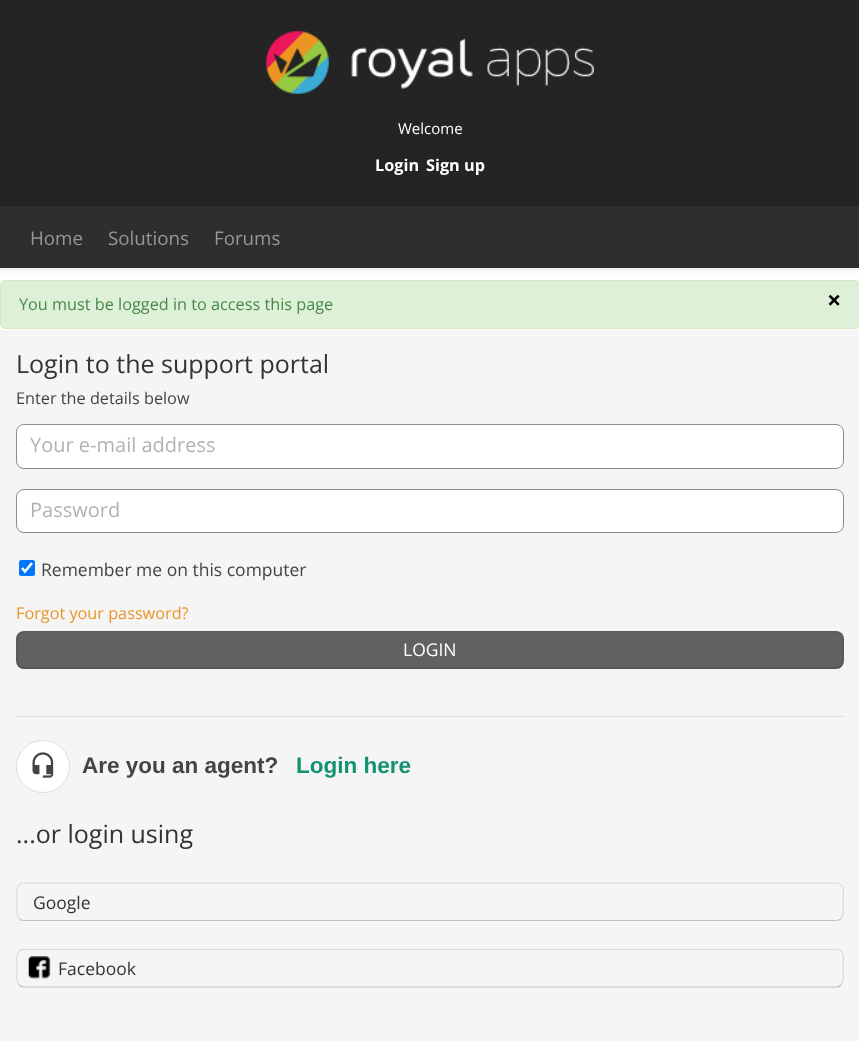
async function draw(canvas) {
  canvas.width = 859
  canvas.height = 1041
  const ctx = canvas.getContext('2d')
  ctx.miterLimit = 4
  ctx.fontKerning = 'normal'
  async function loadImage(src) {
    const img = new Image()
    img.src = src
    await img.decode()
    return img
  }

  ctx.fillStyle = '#fff'
  ctx.fillRect(0, 0, 859, 1041)
  ctx.fillStyle = '#242424'
  ctx.fillRect(0, 0, 859, 208)
  ctx.drawImage(await loadImage('image0.png'), 266, 31, 328, 63)
  ctx.font = '15px Open Sans'
  ctx.fillStyle = '#fff'
  ctx.fillText('Welcome', 398, 134)
  ctx.font = 'bold 16.25px Open Sans'
  ctx.fillText('Login', 375, 171)
  ctx.fillText('Sign up', 426, 171)
  ctx.fillStyle = '#eee'
  ctx.filter = 'blur(2.5px)'
  ctx.beginPath()
  ctx.rect(0, 211, 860, 60)
  ctx.fill()
  ctx.filter = 'none'
  ctx.fillStyle = '#2f2e2f'
  ctx.fillRect(0, 208, 859, 60)
  ctx.font = '18.75px Open Sans'
  ctx.fillStyle = '#979797'
  ctx.fillText('Home', 30, 245)
  ctx.fillText('Solutions', 108, 245)
  ctx.fillText('Forums', 214, 245)
  ctx.fillStyle = '#dff0d8'
  ctx.beginPath()
  ctx.roundRect(0.5, 280.5, 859, 48, 4.5)
  ctx.fill()
  ctx.strokeStyle = '#d6e9c6'
  ctx.stroke()
  ctx.font = '16.25px Open Sans'
  ctx.fillStyle = '#468847'
  ctx.fillText('You must be logged in to access this page', 19, 310)
  ctx.font = 'bold 25px Open Sans'
  ctx.fillStyle = '#000'
  ctx.fillText('×', 827, 309)
  ctx.fillStyle = '#f5f5f5'
  ctx.fillRect(0, 330, 859, 711)
  ctx.fillStyle = '#fcfcfc'
  ctx.fillRect(0, 329, 859, 1)
  ctx.font = '25px Open Sans'
  ctx.fillStyle = '#333'
  ctx.fillText('Login to the support portal', 16, 373)
  ctx.font = '16.25px Open Sans'
  ctx.fillStyle = '#444'
  ctx.fillText('Enter the details below', 16, 404)
  ctx.fillStyle = '#fff'
  ctx.beginPath()
  ctx.roundRect(16.5, 424.5, 827, 44, 7.5)
  ctx.fill()
  ctx.strokeStyle = '#8c8c8c'
  ctx.stroke()
  ctx.font = '20px Open Sans'
  ctx.fillStyle = '#b2b2b2'
  ctx.fillText('Your e-mail address', 30, 452)
  ctx.fillStyle = '#fff'
  ctx.beginPath()
  ctx.roundRect(16.5, 489.5, 827, 43, 7.5)
  ctx.fill()
  ctx.stroke()
  ctx.fillStyle = '#b2b2b2'
  ctx.fillText('Password', 30, 517)
  ctx.fillStyle = '#0075ff'
  ctx.beginPath()
  ctx.roundRect(19, 560, 16, 16, 2.5)
  ctx.fill()
  ctx.beginPath()
  ctx.moveTo(22, 568)
  ctx.lineTo(25, 571.5)
  ctx.lineTo(32, 563)
  ctx.strokeStyle = '#fff'
  ctx.lineWidth = 2.6
  ctx.stroke()
  ctx.font = '17.5px Open Sans'
  ctx.fillStyle = '#444'
  ctx.fillText('Remember me on this computer', 41, 576)
  ctx.font = '16.25px Open Sans'
  ctx.fillStyle = '#eb9526'
  ctx.fillText('Forgot your password?', 16, 619)
  ctx.fillStyle = '#626060'
  ctx.beginPath()
  ctx.roundRect(16, 631, 828, 38, 8)
  ctx.fill()
  ctx.beginPath()
  ctx.moveTo(841, 666)
  ctx.bezierCurveTo(840, 667.5, 838, 668, 836, 668)
  ctx.lineTo(24, 668)
  ctx.bezierCurveTo(22, 668, 20, 667.5, 19, 666)
  ctx.strokeStyle = '#00000040'
  ctx.lineWidth = 1.2
  ctx.stroke()
  ctx.beginPath()
  ctx.moveTo(19, 666)
  ctx.bezierCurveTo(15.5, 662.5, 17, 654.5, 17, 650)
  ctx.bezierCurveTo(17, 645.5, 15.5, 637.5, 19, 634)
  ctx.bezierCurveTo(20, 632.5, 22, 632, 24, 632)
  ctx.lineTo(837, 632)
  ctx.bezierCurveTo(845.5, 633, 843, 644.5, 843, 650)
  ctx.bezierCurveTo(843, 654.5, 844.5, 662.5, 841, 666)
  ctx.strokeStyle = '#0000001a'
  ctx.stroke()
  ctx.font = '17.5px Open Sans'
  ctx.fillStyle = '#fff'
  ctx.fillText('LOGIN', 403, 656)
  ctx.fillStyle = '#ddd'
  ctx.fillRect(16, 716, 828, 1)
  ctx.fillStyle = '#fff'
  ctx.beginPath()
  ctx.roundRect(16.5, 740.5, 53, 52, 26)
  ctx.fill()
  ctx.strokeStyle = '#ddd'
  ctx.lineWidth = 1
  ctx.stroke()
  ctx.drawImage(await loadImage('image1.png'), 32, 752, 22, 26)
  ctx.font = 'bold 22.5px Liberation Sans'
  ctx.fillStyle = '#444'
  ctx.fillText('Are you an agent?', 82, 773)
  ctx.fillStyle = '#139272'
  ctx.fillText('Login here', 296, 773)
  ctx.font = '25px Open Sans'
  ctx.fillStyle = '#333'
  ctx.fillText('...or login using', 16, 843)
  ctx.beginPath()
  ctx.moveTo(841, 918.5)
  ctx.bezierCurveTo(840, 920, 838, 920.5, 836, 920.5)
  ctx.lineTo(24, 920.5)
  ctx.bezierCurveTo(22, 920.5, 20, 920, 19, 918.5)
  ctx.strokeStyle = '#bfbfbf'
  ctx.lineWidth = 1.2
  ctx.stroke()
  ctx.beginPath()
  ctx.moveTo(19, 918.5)
  ctx.bezierCurveTo(15.5, 915, 17, 906, 17, 902)
  ctx.bezierCurveTo(17, 896.5, 14.5, 884, 23, 883)
  ctx.lineTo(837, 883)
  ctx.bezierCurveTo(839, 883.5, 841, 885, 842.5, 887)
  ctx.bezierCurveTo(844.5, 890.5, 843, 898, 843, 902)
  ctx.bezierCurveTo(843, 906, 844.5, 915, 841, 918.5)
  ctx.strokeStyle = '#d9d9d9'
  ctx.stroke()
  ctx.font = '17.5px Open Sans'
  ctx.fillText('Google', 33, 909)
  ctx.beginPath()
  ctx.moveTo(841, 985)
  ctx.bezierCurveTo(840, 986, 838, 987, 836, 987)
  ctx.lineTo(24, 987)
  ctx.bezierCurveTo(22, 987, 20, 986, 19, 985)
  ctx.strokeStyle = '#bfbfbf'
  ctx.stroke()
  ctx.beginPath()
  ctx.moveTo(19, 985)
  ctx.bezierCurveTo(15.5, 981.5, 17, 972.5, 17, 968)
  ctx.bezierCurveTo(17, 962.5, 14.5, 950.5, 23, 949.5)
  ctx.lineTo(837, 949.5)
  ctx.bezierCurveTo(839, 949.5, 841, 951, 842.5, 953)
  ctx.bezierCurveTo(844.5, 956.5, 843, 964, 843, 968)
  ctx.bezierCurveTo(843, 972.5, 844.5, 981.5, 841, 985)
  ctx.strokeStyle = '#d9d9d9'
  ctx.stroke()
  ctx.drawImage(await loadImage('image2.png'), 28, 956, 23, 23)
  ctx.fillText('Facebook', 58, 975)
}

draw(document.querySelector('canvas'))
